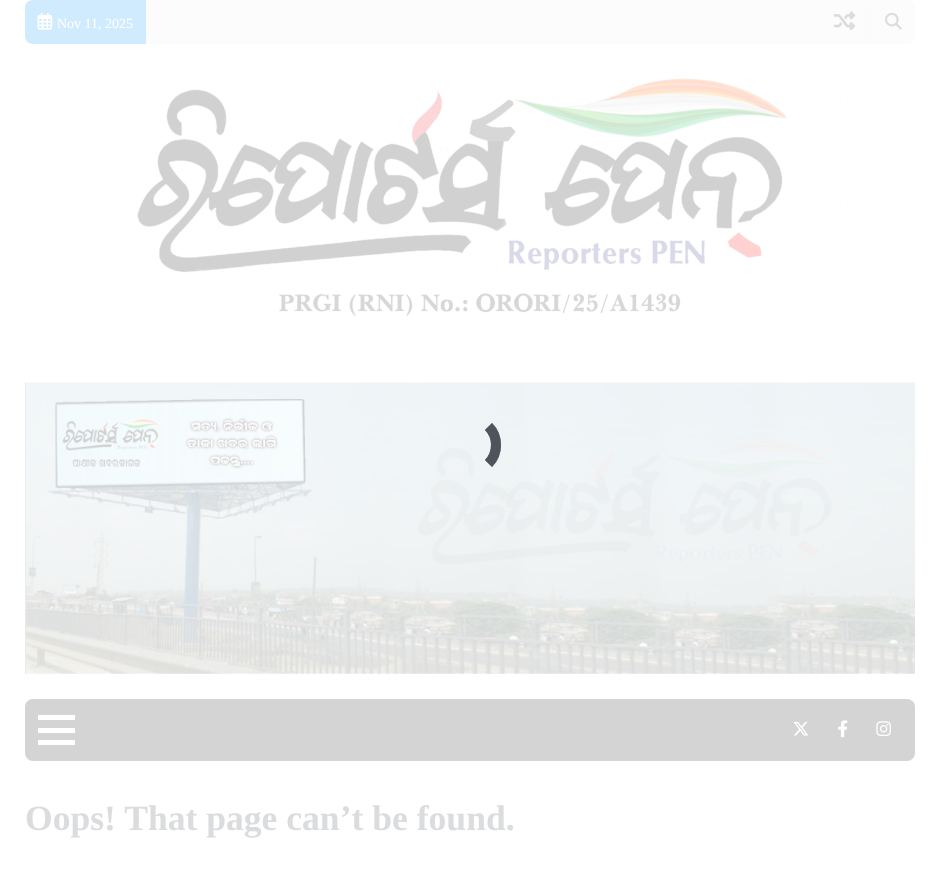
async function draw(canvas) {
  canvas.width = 940
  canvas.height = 888
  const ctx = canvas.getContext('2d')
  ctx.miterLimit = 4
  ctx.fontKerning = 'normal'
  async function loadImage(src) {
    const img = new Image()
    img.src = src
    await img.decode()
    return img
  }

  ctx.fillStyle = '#fff'
  ctx.fillRect(0, 0, 940, 888)
  ctx.fillStyle = '#fcfcfd'
  ctx.beginPath()
  ctx.roundRect(25, 0, 890, 44, 8)
  ctx.fill()
  ctx.fillStyle = '#d1ebfe'
  ctx.beginPath()
  ctx.roundRect(25, 0, 121, 44, [8, 0, 0, 8])
  ctx.fill()
  ctx.drawImage(await loadImage('image0.png'), 37, 12, 16, 18)
  ctx.font = '14px Liberation Serif'
  ctx.fillStyle = '#fff'
  ctx.fillText('Nov 11, 2025', 57, 28)
  ctx.fillStyle = '#fafafa'
  ctx.fillRect(870, 8, 1, 30)
  ctx.drawImage(await loadImage('image1.png'), 833, 11, 23, 20)
  ctx.drawImage(await loadImage('image2.png'), 885, 12, 17, 18)
  ctx.drawImage(await loadImage('image3.png'), 25, 72, 890, 245)
  ctx.drawImage(await loadImage('image4.png'), 25, 382, 890, 292)
  ctx.fillStyle = '#d4d4d4'
  ctx.beginPath()
  ctx.roundRect(25, 699, 890, 62, 8)
  ctx.fill()
  ctx.fillStyle = '#fff'
  ctx.fillRect(38, 715, 37, 5)
  ctx.fillRect(38, 728, 37, 5)
  ctx.fillRect(38, 740, 37, 5)
  ctx.drawImage(await loadImage('image5.png'), 793, 721, 16, 15)
  ctx.drawImage(await loadImage('image6.png'), 838, 720, 10, 18)
  ctx.drawImage(await loadImage('image7.png'), 876, 721, 15, 16)
  ctx.beginPath()
  ctx.moveTo(488.5, 426.5)
  ctx.bezierCurveTo(498.5, 436.5, 498.5, 453.5, 488.5, 463.5)
  ctx.strokeStyle = '#93989d'
  ctx.lineWidth = 10
  ctx.stroke()
  ctx.beginPath()
  ctx.moveTo(488.5, 426.5)
  ctx.bezierCurveTo(498.5, 436.5, 498.5, 453.5, 488.5, 463.5)
  ctx.strokeStyle = '#393e4682'
  ctx.stroke()
  ctx.beginPath()
  ctx.moveTo(488.5, 426.5)
  ctx.bezierCurveTo(498.5, 436.5, 498.5, 453.5, 488.5, 463.5)
  ctx.stroke()
  ctx.font = 'bold 35.6px Liberation Serif'
  ctx.fillStyle = '#dbdcde'
  ctx.fillText('Oops! That page can’t be found.', 25, 830)
}

draw(document.querySelector('canvas'))
